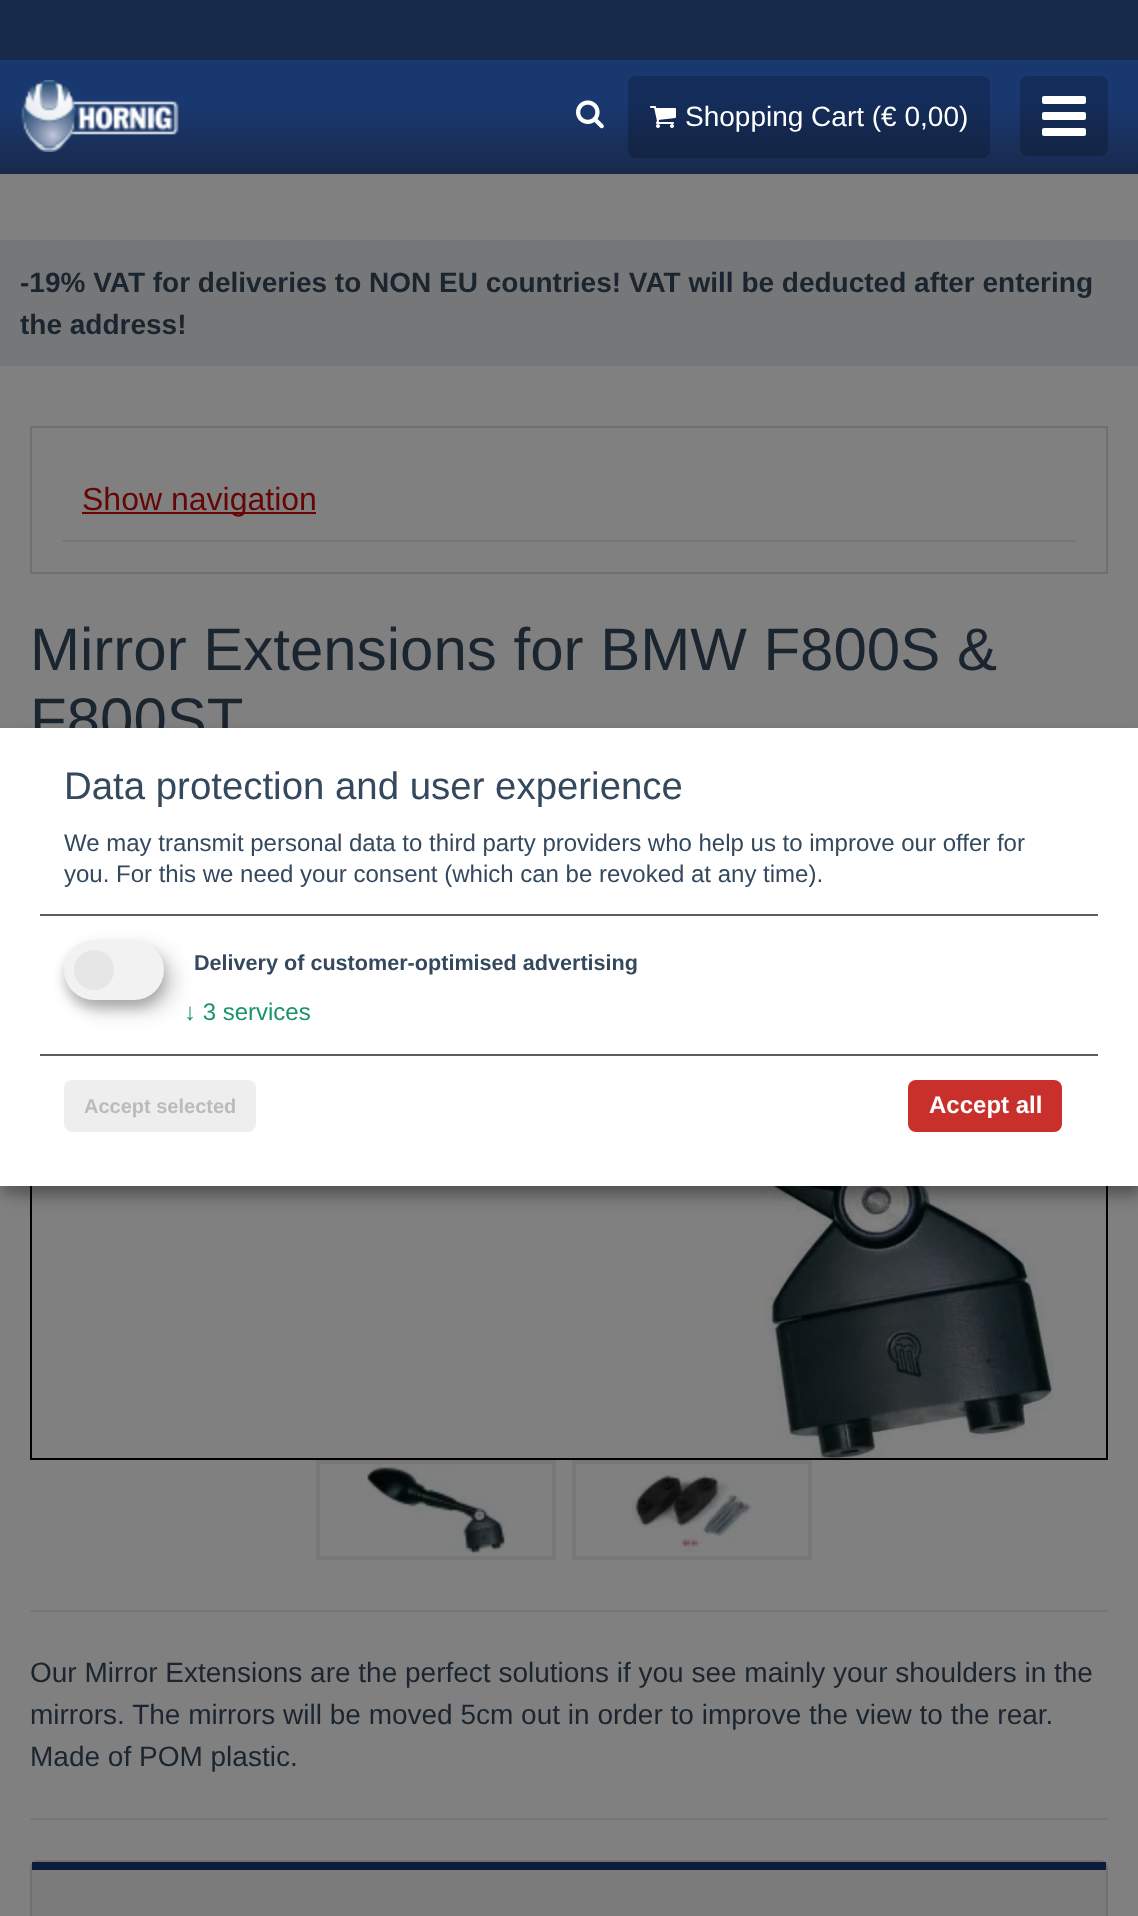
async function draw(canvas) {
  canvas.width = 1138
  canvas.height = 1916
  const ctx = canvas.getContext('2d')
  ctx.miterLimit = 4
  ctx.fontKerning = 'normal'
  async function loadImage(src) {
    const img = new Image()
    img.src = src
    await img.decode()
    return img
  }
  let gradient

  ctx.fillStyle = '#808080'
  ctx.fillRect(0, 0, 1138, 1916)
  gradient = ctx.createLinearGradient(569, 0, 569, 174)
  gradient.addColorStop(0.6, '#1a3870')
  gradient.addColorStop(1, '#182a4b')
  ctx.fillStyle = gradient
  ctx.fillRect(0, 60, 1138, 114)
  ctx.fillStyle = '#182a4b'
  ctx.fillRect(0, 0, 1138, 60)
  ctx.drawImage(await loadImage('image0.png'), 21, 80, 158, 72)
  ctx.drawImage(await loadImage('image1.png'), 576, 100, 28, 29)
  ctx.fillStyle = '#00000033'
  ctx.beginPath()
  ctx.roundRect(628, 76, 362, 82, 8)
  ctx.fill()
  ctx.drawImage(await loadImage('image2.png'), 650, 106, 26, 22)
  ctx.font = '28px Liberation Sans'
  ctx.fillStyle = '#fff'
  ctx.fillText('Shopping Cart (€ 0,00)', 685, 126)
  ctx.fillStyle = '#00000033'
  ctx.beginPath()
  ctx.roundRect(1020, 76, 88, 80, 8)
  ctx.fill()
  ctx.fillStyle = '#fff'
  ctx.beginPath()
  ctx.roundRect(1042, 96, 44, 8, 2)
  ctx.fill()
  ctx.beginPath()
  ctx.roundRect(1042, 112, 44, 8, 2)
  ctx.fill()
  ctx.beginPath()
  ctx.roundRect(1042, 128, 44, 8, 2)
  ctx.fill()
  ctx.fillStyle = '#767778'
  ctx.fillRect(0, 242, 1138, 124)
  ctx.fillStyle = '#777'
  ctx.fillRect(0, 240, 1138, 2)
  ctx.font = 'bold 28px Liberation Sans'
  ctx.fillStyle = '#1a252f'
  ctx.fillText('-19% VAT for deliveries to NON EU countries! VAT will be deducted after entering', 20, 292)
  ctx.fillText('the address!', 20, 334)
  ctx.strokeStyle = '#6f6f6f'
  ctx.lineWidth = 2
  ctx.strokeRect(31, 427, 1076, 146)
  ctx.fillStyle = '#777'
  ctx.fillRect(62, 540, 1014, 2)
  ctx.fillStyle = '#670404'
  ctx.fillRect(82, 512, 234, 2)
  ctx.font = '32px Liberation Sans'
  ctx.fillText('Show navigation', 82, 510)
  ctx.font = '60px Liberation Sans'
  ctx.fillStyle = '#1a252f'
  ctx.fillText('Mirror Extensions for BMW F800S &', 30, 670)
  ctx.fillText('F800ST', 30, 740)
  ctx.strokeStyle = '#000'
  ctx.strokeRect(31, 865, 1076, 594)
  ctx.drawImage(await loadImage('image3.png'), 79, 1186, 975, 272)
  ctx.strokeStyle = '#777'
  ctx.lineWidth = 4
  ctx.strokeRect(318, 1462, 236, 96)
  ctx.drawImage(await loadImage('image4.png'), 367, 1464, 141, 89)
  ctx.strokeRect(574, 1462, 236, 96)
  ctx.drawImage(await loadImage('image5.png'), 632, 1472, 121, 80)
  ctx.fillStyle = '#777'
  ctx.fillRect(30, 1610, 1078, 2)
  ctx.font = '28px Liberation Sans'
  ctx.fillStyle = '#1a252f'
  ctx.fillText('Our Mirror Extensions are the perfect solutions if you see mainly your shoulders in the', 30, 1682)
  ctx.fillText('mirrors. The mirrors will be moved 5cm out in order to improve the view to the rear.', 30, 1724)
  ctx.fillText('Made of POM plastic.', 30, 1766)
  ctx.fillStyle = '#777'
  ctx.fillRect(30, 1818, 1078, 2)
  ctx.beginPath()
  ctx.roundRect(31, 1861, 1076, 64, 7)
  ctx.strokeStyle = '#6f6f6f'
  ctx.lineWidth = 2
  ctx.stroke()
  ctx.fillStyle = '#7b7b7b'
  ctx.fillRect(32, 1870, 1074, 46)
  ctx.fillStyle = '#0d1c38'
  ctx.fillRect(32, 1862, 1074, 8)
  ctx.fillStyle = '#00000030'
  ctx.filter = 'blur(10px)'
  ctx.beginPath()
  ctx.rect(10, 738, 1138, 458)
  ctx.fill()
  ctx.filter = 'none'
  ctx.fillStyle = '#00000033'
  ctx.filter = 'blur(6px)'
  ctx.beginPath()
  ctx.rect(0, 736, 1138, 458)
  ctx.fill()
  ctx.filter = 'none'
  ctx.fillStyle = '#fff'
  ctx.fillRect(0, 728, 1138, 458)
  ctx.fillStyle = '#5c5c5c'
  ctx.fillRect(40, 914, 1058, 2)
  ctx.font = '38.4px Liberation Sans'
  ctx.fillStyle = '#34495e'
  ctx.fillText('Data protection and user experience', 64, 799)
  ctx.font = '24px Liberation Sans'
  ctx.fillText('We may transmit personal data to third party providers who help us to improve our offer for', 64, 851)
  ctx.fillText('you. For this we need your consent (which can be revoked at any time).', 64, 882)
  ctx.fillStyle = '#00000030'
  ctx.filter = 'blur(10px)'
  ctx.beginPath()
  ctx.roundRect(74, 950, 100, 60, 30)
  ctx.fill()
  ctx.filter = 'none'
  ctx.fillStyle = '#00000033'
  ctx.filter = 'blur(6px)'
  ctx.beginPath()
  ctx.roundRect(64, 948, 100, 60, 30)
  ctx.fill()
  ctx.filter = 'none'
  ctx.fillStyle = '#f2f2f2'
  ctx.beginPath()
  ctx.roundRect(64, 940, 100, 60, 30)
  ctx.fill()
  ctx.fillStyle = '#e6e6e6'
  ctx.beginPath()
  ctx.arc(94, 970, 20, 0, 2 * Math.PI)
  ctx.fill()
  ctx.font = 'bold 21.6px Liberation Sans'
  ctx.fillStyle = '#34495e'
  ctx.fillText('Delivery of customer-optimised advertising', 194, 970)
  ctx.font = '24px Liberation Sans'
  ctx.fillStyle = '#1a936f'
  ctx.fillText('↓ 3 services', 184, 1020)
  ctx.fillStyle = '#5c5c5c'
  ctx.fillRect(40, 1054, 1058, 2)
  ctx.fillStyle = '#eee'
  ctx.beginPath()
  ctx.roundRect(64, 1080, 192, 52, 8)
  ctx.fill()
  ctx.font = 'bold 20px Liberation Sans'
  ctx.fillStyle = '#bbb'
  ctx.fillText('Accept selected', 84, 1113)
  ctx.fillStyle = '#c9302c'
  ctx.beginPath()
  ctx.roundRect(908, 1080, 154, 52, 8)
  ctx.fill()
  ctx.font = 'bold 24px Liberation Sans'
  ctx.fillStyle = '#fff'
  ctx.fillText('Accept all', 929, 1113)
}

draw(document.querySelector('canvas'))
